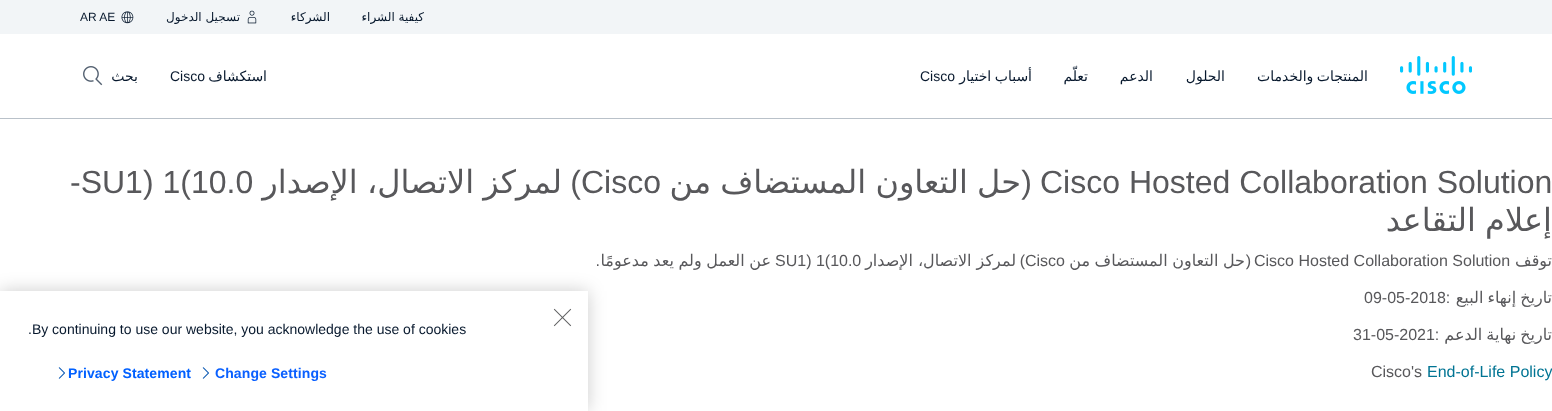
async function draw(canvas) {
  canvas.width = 1552
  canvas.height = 411
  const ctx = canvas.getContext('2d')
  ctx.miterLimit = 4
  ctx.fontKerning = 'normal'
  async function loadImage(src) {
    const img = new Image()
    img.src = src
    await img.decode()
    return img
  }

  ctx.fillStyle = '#f2f5f7'
  ctx.fillRect(0, 0, 1552, 411)
  ctx.font = '12px Liberation Sans'
  ctx.fillStyle = '#07182d'
  ctx.fillText('AR AE', 80, 21)
  ctx.drawImage(await loadImage('image0.png'), 121, 11, 13, 13)
  ctx.direction = 'rtl'
  ctx.font = '12px DejaVu Sans'
  ctx.fillText('تسجيل الدخول', 240, 21)
  ctx.drawImage(await loadImage('image1.png'), 247, 10, 10, 14)
  ctx.fillText('الشركاء', 330, 21)
  ctx.fillText('كيفية الشراء', 424, 21)
  ctx.fillStyle = '#fff'
  ctx.fillRect(0, 34, 1552, 84)
  ctx.fillStyle = '#b9c1c9'
  ctx.fillRect(0, 118, 1552, 1)
  ctx.drawImage(await loadImage('image2.png'), 83, 66, 20, 20)
  ctx.font = '14px DejaVu Sans'
  ctx.fillStyle = '#07182d'
  ctx.fillText('بحث', 138, 81)
  ctx.direction = 'ltr'
  ctx.font = '14px Liberation Sans'
  ctx.fillText('Cisco', 170, 81)
  ctx.direction = 'rtl'
  ctx.font = '14px DejaVu Sans'
  ctx.fillText('استكشاف', 267, 81)
  ctx.direction = 'ltr'
  ctx.font = '14px Liberation Sans'
  ctx.fillText('Cisco', 920, 81)
  ctx.wordSpacing = '-1px'
  ctx.direction = 'rtl'
  ctx.font = '14px DejaVu Sans'
  ctx.fillText('أسباب اختيار', 1032, 81)
  ctx.wordSpacing = '0px'
  ctx.fillText('تعلّم', 1088, 81)
  ctx.fillText('الدعم', 1153, 81)
  ctx.fillText('الحلول', 1225, 81)
  ctx.wordSpacing = '-1px'
  ctx.fillText('المنتجات والخدمات', 1368, 81)
  ctx.drawImage(await loadImage('image3.png'), 1400, 56, 72, 38)
  ctx.fillStyle = '#fff'
  ctx.fillRect(0, 119, 1552, 292)
  ctx.wordSpacing = '0px'
  ctx.direction = 'ltr'
  ctx.font = '32px Liberation Sans'
  ctx.fillStyle = '#58585b'
  ctx.fillText('-SU1) 1(10.0', 70, 193)
  ctx.wordSpacing = '-1px'
  ctx.direction = 'rtl'
  ctx.font = '32px DejaVu Sans'
  ctx.fillText('لمركز الاتصال، الإصدار', 562, 193)
  ctx.wordSpacing = '0px'
  ctx.font = '32px Liberation Sans'
  ctx.fillText(')', 581, 193)
  ctx.direction = 'ltr'
  ctx.fillText('Cisco', 581, 193)
  ctx.wordSpacing = '-1px'
  ctx.direction = 'rtl'
  ctx.font = '32px DejaVu Sans'
  ctx.fillText('حل التعاون المستضاف من', 1021, 193)
  ctx.wordSpacing = '0px'
  ctx.font = '32px Liberation Sans'
  ctx.fillText('(', 1032, 193)
  ctx.direction = 'ltr'
  ctx.fillText('Cisco Hosted Collaboration Solution', 1040, 193)
  ctx.wordSpacing = '-1px'
  ctx.direction = 'rtl'
  ctx.font = '32px DejaVu Sans'
  ctx.fillText('إعلام التقاعد', 1552, 231)
  ctx.wordSpacing = '0px'
  ctx.font = '16px Liberation Sans'
  ctx.fillText('.', 600, 266)
  ctx.wordSpacing = '-0.5px'
  ctx.font = '16px DejaVu Sans'
  ctx.fillText('عن العمل ولم يعد مدعومًا', 771, 266)
  ctx.wordSpacing = '0px'
  ctx.direction = 'ltr'
  ctx.font = '16px Liberation Sans'
  ctx.fillText('SU1) 1(10.0', 775, 266)
  ctx.direction = 'rtl'
  ctx.font = '16px DejaVu Sans'
  ctx.fillText('لمركز الاتصال، الإصدار', 1016, 266)
  ctx.font = '16px Liberation Sans'
  ctx.fillText(')', 1025, 266)
  ctx.direction = 'ltr'
  ctx.fillText('Cisco', 1025, 266)
  ctx.wordSpacing = '-0.5px'
  ctx.direction = 'rtl'
  ctx.font = '16px DejaVu Sans'
  ctx.fillText('حل التعاون المستضاف من', 1245, 266)
  ctx.wordSpacing = '0px'
  ctx.font = '16px Liberation Sans'
  ctx.fillText('(', 1251, 266)
  ctx.direction = 'ltr'
  ctx.fillText('Cisco Hosted Collaboration Solution', 1254, 266)
  ctx.direction = 'rtl'
  ctx.font = '16px DejaVu Sans'
  ctx.fillText('توقف', 1552, 266)
  ctx.direction = 'ltr'
  ctx.font = '16px Liberation Sans'
  ctx.fillText('09-05-2018:', 1364, 303)
  ctx.wordSpacing = '-1px'
  ctx.direction = 'rtl'
  ctx.font = '16px DejaVu Sans'
  ctx.fillText('تاريخ إنهاء البيع', 1552, 303)
  ctx.wordSpacing = '0px'
  ctx.direction = 'ltr'
  ctx.font = '16px Liberation Sans'
  ctx.fillText('31-05-2021:', 1353, 340)
  ctx.wordSpacing = '-1px'
  ctx.direction = 'rtl'
  ctx.font = '16px DejaVu Sans'
  ctx.fillText('تاريخ نهاية الدعم', 1552, 340)
  ctx.wordSpacing = '0px'
  ctx.direction = 'ltr'
  ctx.font = '16px Liberation Sans'
  ctx.fillText('Cisco\'s', 1371, 377)
  ctx.fillStyle = '#007493'
  ctx.fillText('End-of-Life Policy', 1427, 377)
  ctx.save()
  ctx.beginPath()
  ctx.moveTo(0, 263)
  ctx.lineTo(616, 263)
  ctx.lineTo(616, 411)
  ctx.lineTo(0, 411)
  ctx.closePath()
  ctx.moveTo(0, 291)
  ctx.lineTo(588, 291)
  ctx.lineTo(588, 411)
  ctx.lineTo(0, 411)
  ctx.closePath()
  ctx.clip('evenodd')
  ctx.fillStyle = '#00000033'
  ctx.filter = 'blur(9px)'
  ctx.beginPath()
  ctx.rect(0, 291, 588, 120)
  ctx.fill()
  ctx.filter = 'none'
  ctx.restore()
  ctx.drawImage(await loadImage('image4.png'), 553, 308, 19, 19)
  ctx.font = '14px Liberation Sans'
  ctx.fillStyle = '#07182d'
  ctx.fillText('.By continuing to use our website, you acknowledge the use of cookies', 28, 334)
  ctx.letterSpacing = '0.1px'
  ctx.font = 'bold 14px Liberation Sans'
  ctx.fillStyle = '#0060ff'
  ctx.fillText('Privacy Statement', 68, 378)
  ctx.drawImage(await loadImage('image5.png'), 202, 367, 7, 12)
  ctx.drawImage(await loadImage('image5.png'), 58, 367, 7, 12)
  ctx.fillStyle = '#0a60ff'
  ctx.fillText('Change Settings', 215, 378)
}

draw(document.querySelector('canvas'))
